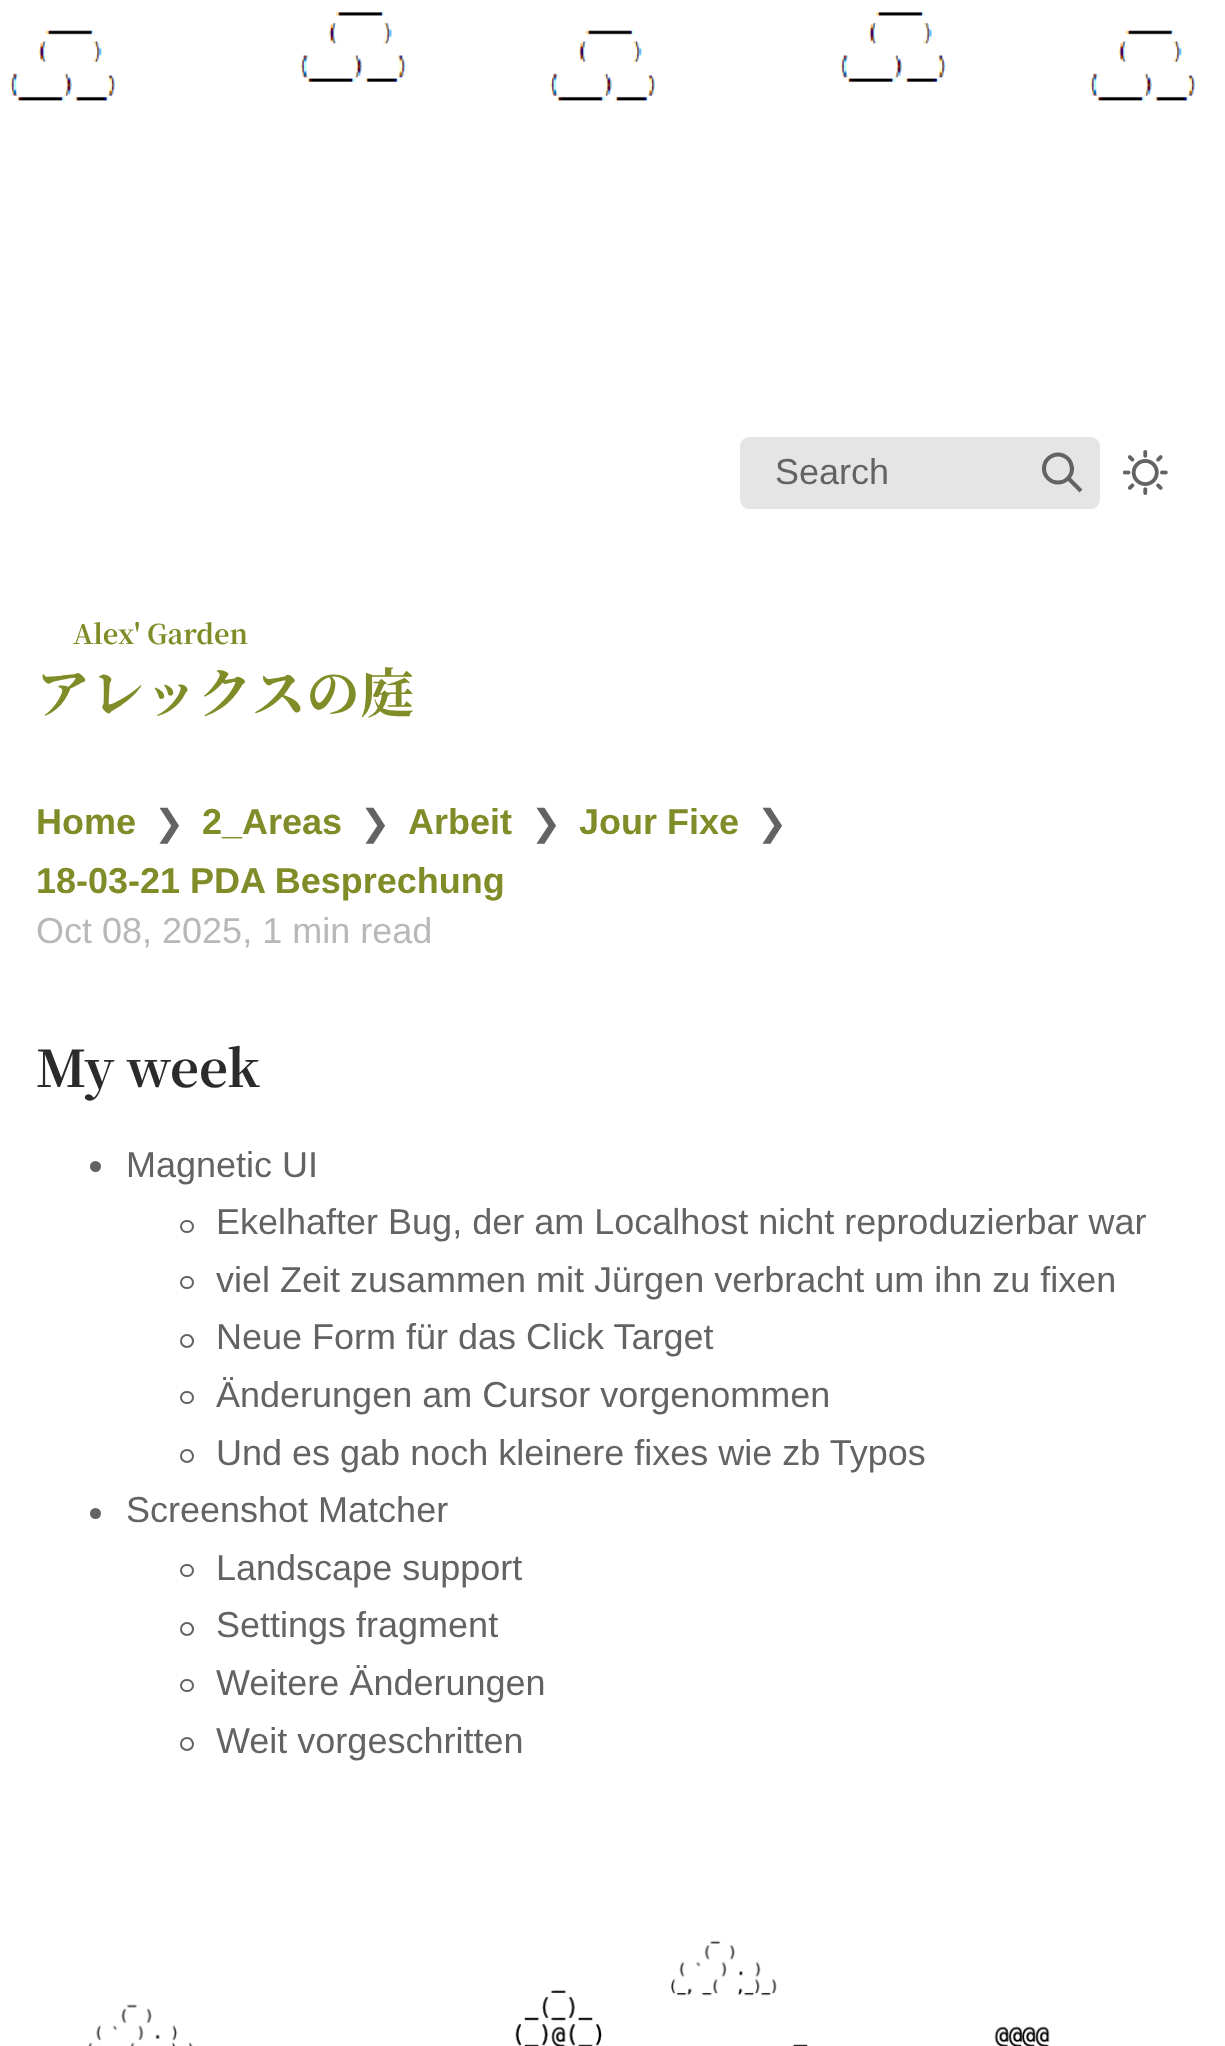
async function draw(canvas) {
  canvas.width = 1225
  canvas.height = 2046
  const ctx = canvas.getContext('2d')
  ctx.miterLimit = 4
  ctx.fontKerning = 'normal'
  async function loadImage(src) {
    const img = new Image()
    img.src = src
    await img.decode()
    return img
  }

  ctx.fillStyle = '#fff'
  ctx.fillRect(0, 0, 1225, 2046)
  ctx.drawImage(await loadImage('image0.png'), 10, 12, 1185, 89)
  ctx.fillStyle = '#e5e5e5'
  ctx.beginPath()
  ctx.roundRect(740, 437, 360, 72, 9)
  ctx.fill()
  ctx.font = '36px Liberation Sans'
  ctx.fillStyle = '#636363'
  ctx.fillText('Search', 775, 484)
  ctx.beginPath()
  ctx.moveTo(1079.5, 489.5)
  ctx.lineTo(1068.5, 478.5)
  ctx.strokeStyle = '#636363'
  ctx.lineWidth = 4.1
  ctx.lineCap = 'square'
  ctx.stroke()
  ctx.beginPath()
  ctx.arc(1058, 468.5, 14, 0, 2 * Math.PI)
  ctx.stroke()
  ctx.drawImage(await loadImage('image1.png'), 1123, 450, 45, 45)
  ctx.font = 'bold 27px Noto Serif JP'
  ctx.fillStyle = '#808c27'
  ctx.fillText('Alex\' Garden', 73, 644)
  ctx.font = 'bold 54px Noto Serif JP'
  ctx.fillText('アレックスの庭', 36, 713)
  ctx.font = 'bold 36px Liberation Sans'
  ctx.fillText('Home', 36, 834)
  ctx.font = '36px DejaVu Sans'
  ctx.fillStyle = '#636363'
  ctx.fillText('❯', 154, 835)
  ctx.font = 'bold 36px Liberation Sans'
  ctx.fillStyle = '#808c27'
  ctx.fillText('2_Areas', 202, 834)
  ctx.font = '36px DejaVu Sans'
  ctx.fillStyle = '#636363'
  ctx.fillText('❯', 360, 835)
  ctx.font = 'bold 36px Liberation Sans'
  ctx.fillStyle = '#808c27'
  ctx.fillText('Arbeit', 408, 834)
  ctx.font = '36px DejaVu Sans'
  ctx.fillStyle = '#636363'
  ctx.fillText('❯', 531, 835)
  ctx.font = 'bold 36px Liberation Sans'
  ctx.fillStyle = '#808c27'
  ctx.fillText('Jour Fixe', 579, 834)
  ctx.font = '36px DejaVu Sans'
  ctx.fillStyle = '#636363'
  ctx.fillText('❯', 757, 835)
  ctx.font = 'bold 36px Liberation Sans'
  ctx.fillStyle = '#808c27'
  ctx.fillText('18-03-21 PDA Besprechung', 36, 893)
  ctx.font = '36px Liberation Sans'
  ctx.fillStyle = '#b8b8b8'
  ctx.fillText('Oct 08, 2025, 1 min read', 36, 943)
  ctx.font = 'bold 50.5px Noto Serif JP'
  ctx.fillStyle = '#2b2b2b'
  ctx.fillText('My week', 36, 1087)
  ctx.fillStyle = '#636363'
  ctx.beginPath()
  ctx.arc(95.5, 1166.5, 5.5, 0, 2 * Math.PI)
  ctx.fill()
  ctx.font = '36px Liberation Sans'
  ctx.fillText('Magnetic UI', 126, 1177)
  ctx.beginPath()
  ctx.roundRect(181, 1221, 12, 11, 5.5)
  ctx.lineWidth = 2
  ctx.stroke()
  ctx.fillText('Ekelhafter Bug, der am Localhost nicht reproduzierbar war', 216, 1234)
  ctx.beginPath()
  ctx.roundRect(181, 1277, 12, 11, 5.5)
  ctx.stroke()
  ctx.fillText('viel Zeit zusammen mit Jürgen verbracht um ihn zu fixen', 216, 1292)
  ctx.beginPath()
  ctx.arc(187, 1341, 6, 0, 2 * Math.PI)
  ctx.stroke()
  ctx.fillText('Neue Form für das Click Target', 216, 1349)
  ctx.beginPath()
  ctx.roundRect(181, 1392, 12, 11, 5.5)
  ctx.stroke()
  ctx.fillText('Änderungen am Cursor vorgenommen', 216, 1407)
  ctx.beginPath()
  ctx.arc(187, 1456, 6, 0, 2 * Math.PI)
  ctx.stroke()
  ctx.fillText('Und es gab noch kleinere fixes wie zb Typos', 216, 1465)
  ctx.beginPath()
  ctx.arc(95.5, 1513.5, 5.5, 0, 2 * Math.PI)
  ctx.fill()
  ctx.fillText('Screenshot Matcher', 126, 1522)
  ctx.beginPath()
  ctx.roundRect(181, 1565, 12, 11, 5.5)
  ctx.stroke()
  ctx.fillText('Landscape support', 216, 1580)
  ctx.beginPath()
  ctx.arc(187, 1629, 6, 0, 2 * Math.PI)
  ctx.stroke()
  ctx.fillText('Settings fragment', 216, 1637)
  ctx.beginPath()
  ctx.roundRect(181, 1680, 12, 11, 5.5)
  ctx.stroke()
  ctx.fillText('Weitere Änderungen', 216, 1695)
  ctx.beginPath()
  ctx.arc(187, 1744, 6, 0, 2 * Math.PI)
  ctx.stroke()
  ctx.fillText('Weit vorgeschritten', 216, 1753)
  ctx.drawImage(await loadImage('image2.png'), 88, 1940, 962, 106)
}

draw(document.querySelector('canvas'))
